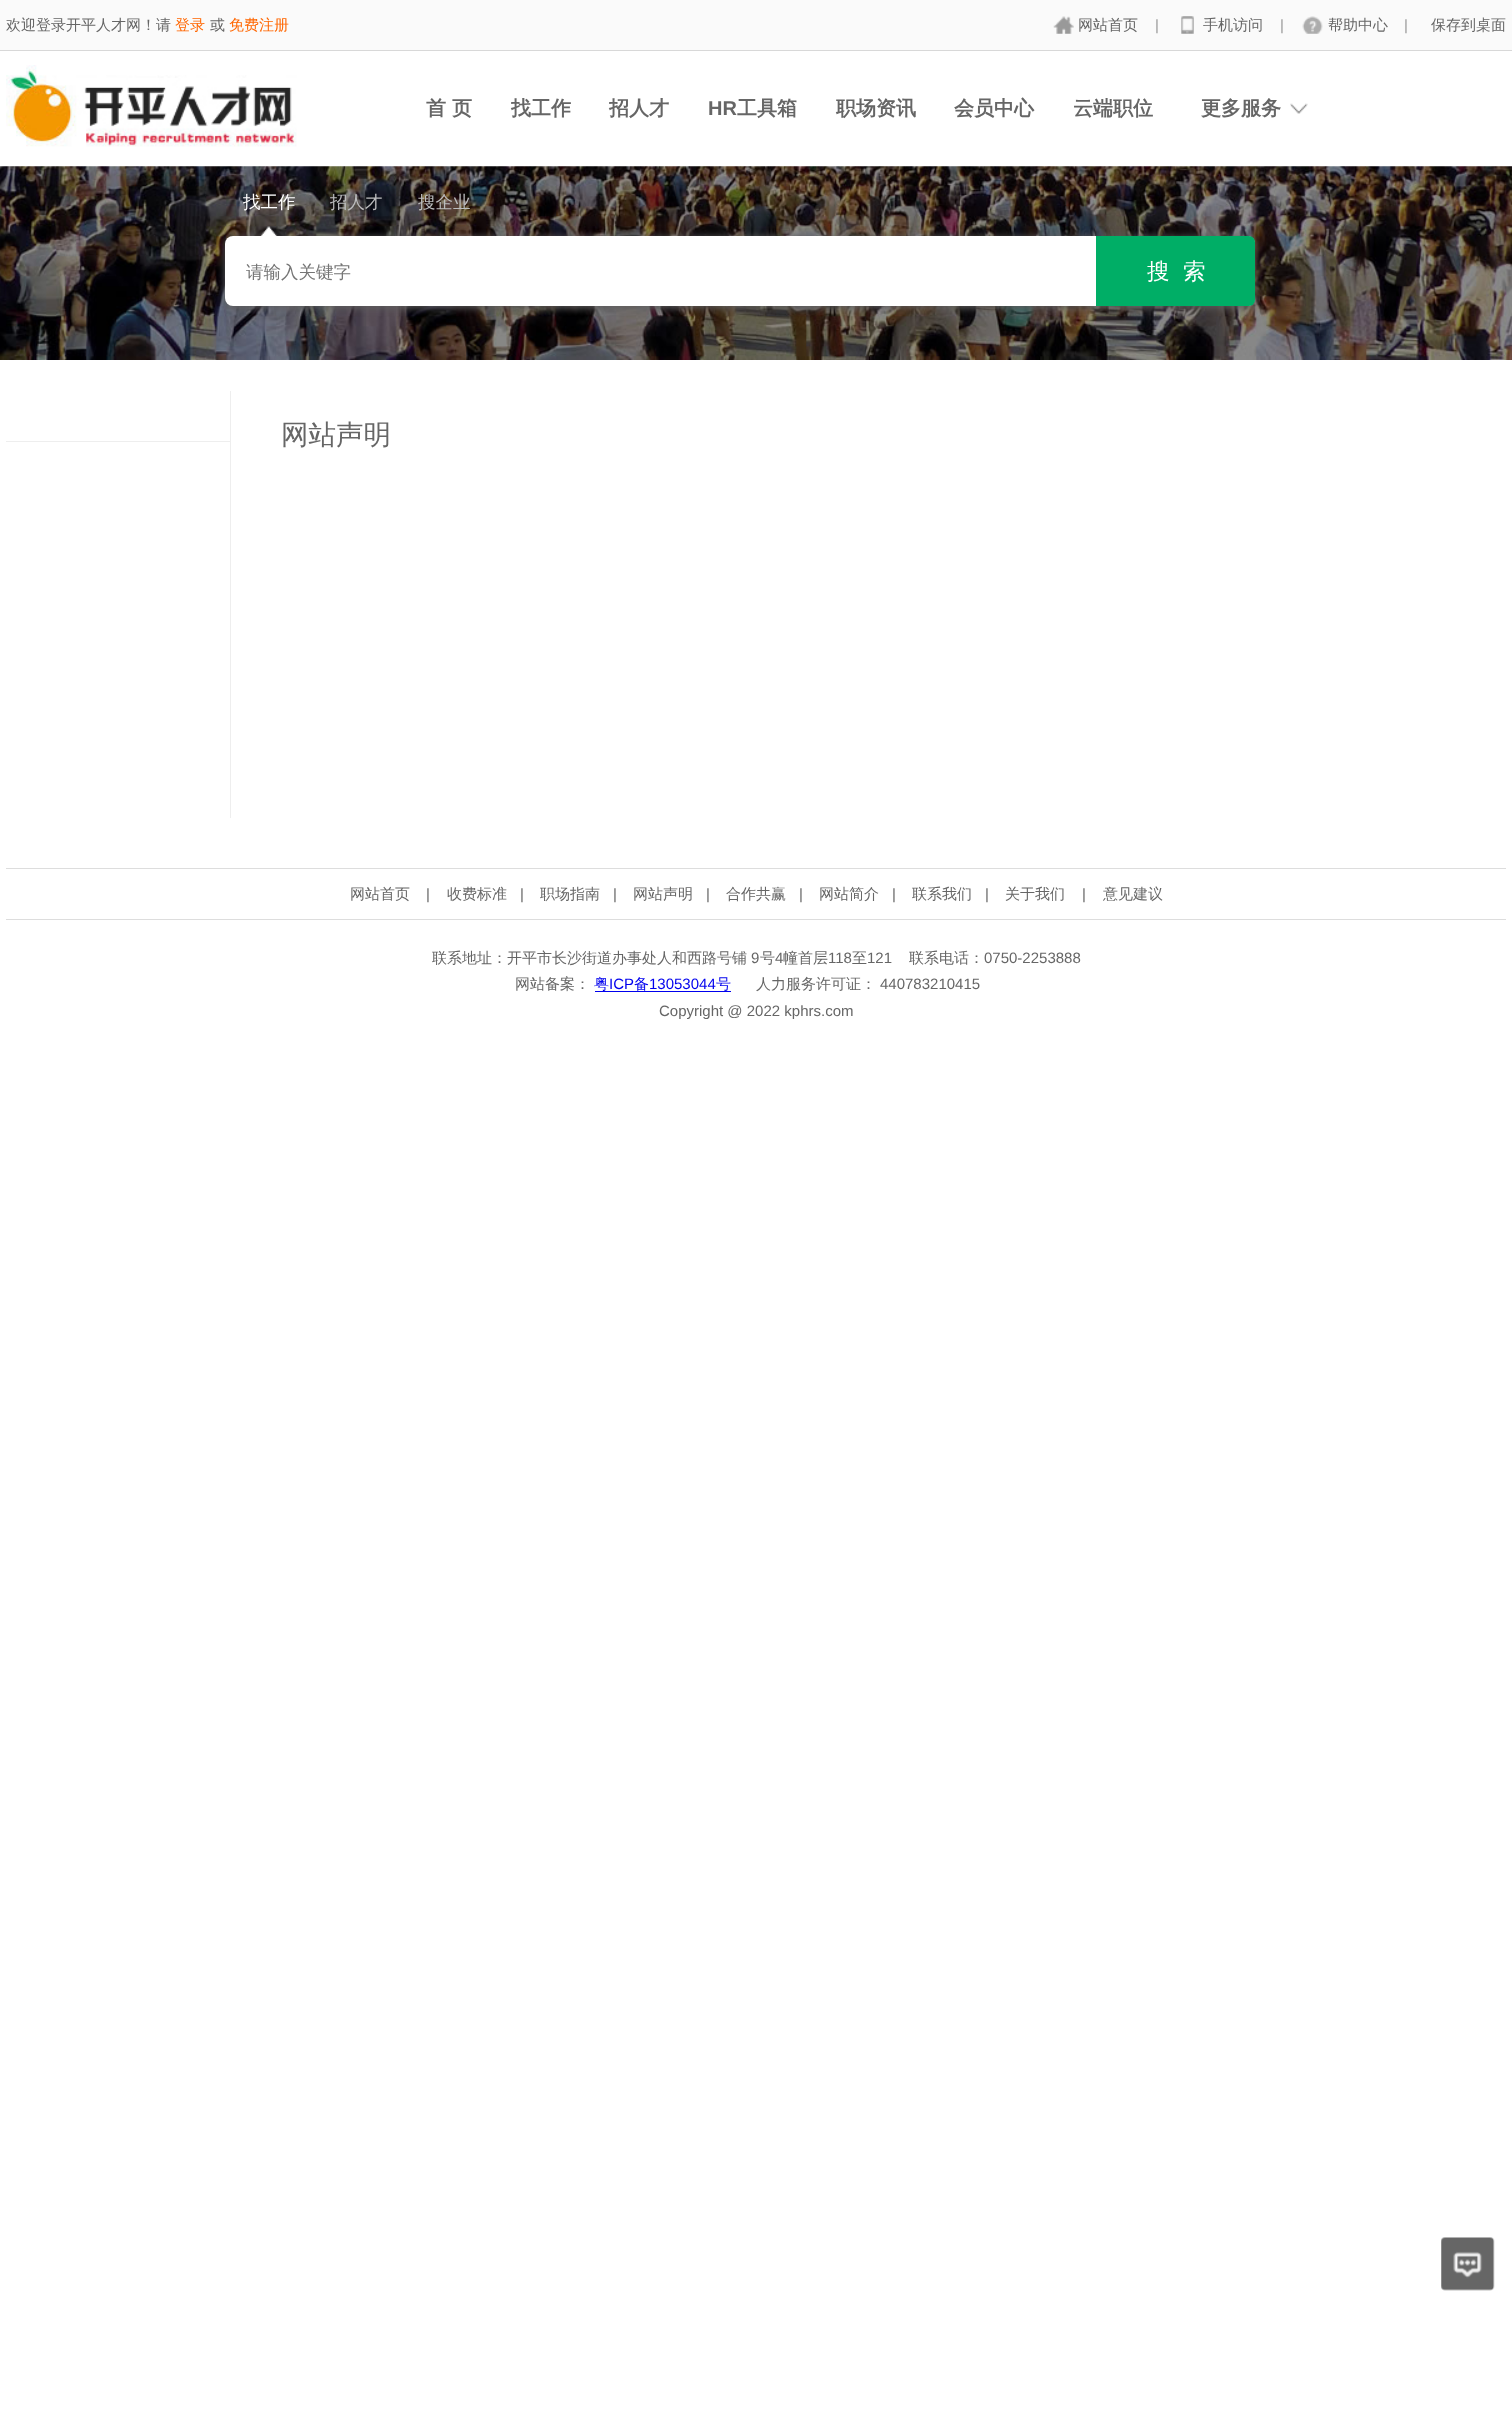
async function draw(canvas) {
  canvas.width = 1512
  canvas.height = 2415
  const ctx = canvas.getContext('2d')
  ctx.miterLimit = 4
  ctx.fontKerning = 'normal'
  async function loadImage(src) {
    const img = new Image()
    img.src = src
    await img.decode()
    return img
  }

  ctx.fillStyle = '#fff'
  ctx.fillRect(0, 0, 1512, 2415)
  ctx.fillStyle = '#fafafa'
  ctx.fillRect(0, 0, 1512, 50)
  ctx.font = '500 15px WenQuanYi Zen Hei'
  ctx.fillStyle = '#666'
  ctx.fillText('欢迎登录开平人才网！请', 6, 30)
  ctx.fillStyle = '#f60'
  ctx.fillText('登录', 175, 30)
  ctx.fillStyle = '#666'
  ctx.fillText('或', 210, 30)
  ctx.fillStyle = '#f60'
  ctx.fillText('免费注册', 229, 30)
  ctx.drawImage(await loadImage('image0.png'), 1053, 16, 21, 18)
  ctx.fillStyle = '#666'
  ctx.fillText('网站首页', 1078, 30)
  ctx.font = '15px Liberation Sans'
  ctx.fillStyle = '#999'
  ctx.fillText('|', 1155, 30)
  ctx.drawImage(await loadImage('image1.png'), 1181, 16, 13, 18)
  ctx.font = '500 15px WenQuanYi Zen Hei'
  ctx.fillStyle = '#666'
  ctx.fillText('手机访问', 1203, 30)
  ctx.font = '15px Liberation Sans'
  ctx.fillStyle = '#999'
  ctx.fillText('|', 1280, 30)
  ctx.drawImage(await loadImage('image2.png'), 1302, 16, 21, 18)
  ctx.font = '500 15px WenQuanYi Zen Hei'
  ctx.fillStyle = '#666'
  ctx.fillText('帮助中心', 1328, 30)
  ctx.font = '15px Liberation Sans'
  ctx.fillStyle = '#999'
  ctx.fillText('|', 1404, 30)
  ctx.font = '500 15px WenQuanYi Zen Hei'
  ctx.fillStyle = '#666'
  ctx.fillText('保存到桌面', 1431, 30)
  ctx.fillStyle = '#d8d8d8'
  ctx.fillRect(0, 50, 1512, 1)
  ctx.drawImage(await loadImage('image3.png'), 6, 65, 291, 82)
  ctx.font = 'bold 20px WenQuanYi Zen Hei'
  ctx.fillStyle = '#666'
  ctx.fillText('首', 426, 115)
  ctx.fillText('页', 452, 115)
  ctx.fillText('找工作', 511, 115)
  ctx.fillText('招人才', 609, 115)
  ctx.font = 'bold 20px Liberation Sans'
  ctx.fillText('HR', 708, 115)
  ctx.font = 'bold 20px WenQuanYi Zen Hei'
  ctx.fillText('工具箱', 737, 115)
  ctx.fillText('职场资讯', 836, 115)
  ctx.fillText('会员中心', 954, 115)
  ctx.fillText('云端职位', 1073, 115)
  ctx.drawImage(await loadImage('image4.png'), 1290, 103, 18, 11)
  ctx.fillText('更多服务', 1201, 115)
  ctx.drawImage(await loadImage('image5.png'), 0, 166, 1512, 194)
  ctx.font = '500 17.5px WenQuanYi Zen Hei'
  ctx.fillStyle = '#fff'
  ctx.fillText('找工作', 243, 208)
  ctx.fillStyle = '#5d5b5bd4'
  ctx.filter = 'blur(3px)'
  ctx.beginPath()
  ctx.roundRect(224, 236, 1032, 73, 9)
  ctx.fill()
  ctx.filter = 'none'
  ctx.drawImage(await loadImage('image6.png'), 260, 226, 18, 10)
  ctx.fillStyle = '#bbbcbe'
  ctx.fillText('招人才', 330, 208)
  ctx.fillText('搜企业', 418, 208)
  ctx.fillStyle = '#fff'
  ctx.beginPath()
  ctx.roundRect(225, 236, 1030, 70, 8)
  ctx.fill()
  ctx.fillStyle = '#757575'
  ctx.fillText('请输入关键字', 246, 278)
  ctx.fillStyle = '#00ae66'
  ctx.beginPath()
  ctx.roundRect(1096, 236, 159, 70, [0, 6, 6, 0])
  ctx.fill()
  ctx.font = '500 22.5px WenQuanYi Zen Hei'
  ctx.fillStyle = '#fff'
  ctx.fillText('搜  索', 1147, 279)
  ctx.fillStyle = '#eee'
  ctx.fillRect(230, 391, 1, 427)
  ctx.fillRect(6, 441, 224, 1)
  ctx.font = '500 27.5px WenQuanYi Zen Hei'
  ctx.fillStyle = '#666'
  ctx.fillText('网站声明', 281, 444)
  ctx.fillStyle = '#ddd'
  ctx.fillRect(6, 868, 1500, 1)
  ctx.fillRect(6, 919, 1500, 1)
  ctx.font = '500 15px WenQuanYi Zen Hei'
  ctx.fillStyle = '#666'
  ctx.fillText('网站首页', 350, 899)
  ctx.font = '15px Liberation Sans'
  ctx.fillText('|', 426, 899)
  ctx.font = '500 15px WenQuanYi Zen Hei'
  ctx.fillText('收费标准', 447, 899)
  ctx.font = '15px Liberation Sans'
  ctx.fillText('|', 520, 899)
  ctx.font = '500 15px WenQuanYi Zen Hei'
  ctx.fillText('职场指南', 540, 899)
  ctx.font = '15px Liberation Sans'
  ctx.fillText('|', 613, 899)
  ctx.font = '500 15px WenQuanYi Zen Hei'
  ctx.fillText('网站声明', 633, 899)
  ctx.font = '15px Liberation Sans'
  ctx.fillText('|', 706, 899)
  ctx.font = '500 15px WenQuanYi Zen Hei'
  ctx.fillText('合作共赢', 726, 899)
  ctx.font = '15px Liberation Sans'
  ctx.fillText('|', 799, 899)
  ctx.font = '500 15px WenQuanYi Zen Hei'
  ctx.fillText('网站简介', 819, 899)
  ctx.font = '15px Liberation Sans'
  ctx.fillText('|', 892, 899)
  ctx.font = '500 15px WenQuanYi Zen Hei'
  ctx.fillText('联系我们', 912, 899)
  ctx.font = '15px Liberation Sans'
  ctx.fillText('|', 985, 899)
  ctx.font = '500 15px WenQuanYi Zen Hei'
  ctx.fillText('关于我们', 1005, 899)
  ctx.font = '15px Liberation Sans'
  ctx.fillText('|', 1082, 899)
  ctx.font = '500 15px WenQuanYi Zen Hei'
  ctx.fillText('意见建议', 1103, 899)
  ctx.fillText('联系地址：开平市长沙街道办事处人和西路号铺', 432, 963)
  ctx.font = '15px Liberation Sans'
  ctx.fillText('9', 751, 963)
  ctx.font = '500 15px WenQuanYi Zen Hei'
  ctx.fillText('号', 760, 963)
  ctx.font = '15px Liberation Sans'
  ctx.fillText('4', 775, 963)
  ctx.font = '500 15px WenQuanYi Zen Hei'
  ctx.fillText('幢首层', 783, 963)
  ctx.font = '15px Liberation Sans'
  ctx.fillText('118', 828, 963)
  ctx.font = '500 15px WenQuanYi Zen Hei'
  ctx.fillText('至', 852, 963)
  ctx.font = '15px Liberation Sans'
  ctx.fillText('121', 867, 963)
  ctx.font = '500 15px WenQuanYi Zen Hei'
  ctx.fillText('联系电话：', 909, 963)
  ctx.font = '15px Liberation Sans'
  ctx.fillText('0750-2253888', 984, 963)
  ctx.font = '500 15px WenQuanYi Zen Hei'
  ctx.fillText('网站备案：', 515, 989)
  ctx.fillStyle = '#00e'
  ctx.fillText('粤', 594, 989)
  ctx.font = '15px Liberation Sans'
  ctx.fillText('ICP', 609, 989)
  ctx.fillRect(595, 991, 136, 1)
  ctx.font = '500 15px WenQuanYi Zen Hei'
  ctx.fillText('备', 634, 989)
  ctx.font = '15px Liberation Sans'
  ctx.fillText('13053044', 649, 989)
  ctx.font = '500 15px WenQuanYi Zen Hei'
  ctx.fillText('号', 716, 989)
  ctx.fillStyle = '#666'
  ctx.fillText('人力服务许可证：', 756, 989)
  ctx.font = '15px Liberation Sans'
  ctx.fillText('440783210415', 880, 989)
  ctx.fillText('Copyright @ 2022 kphrs.com', 659, 1016)
  ctx.drawImage(await loadImage('image7.png'), 1441, 2237, 54, 54)
}

draw(document.querySelector('canvas'))
